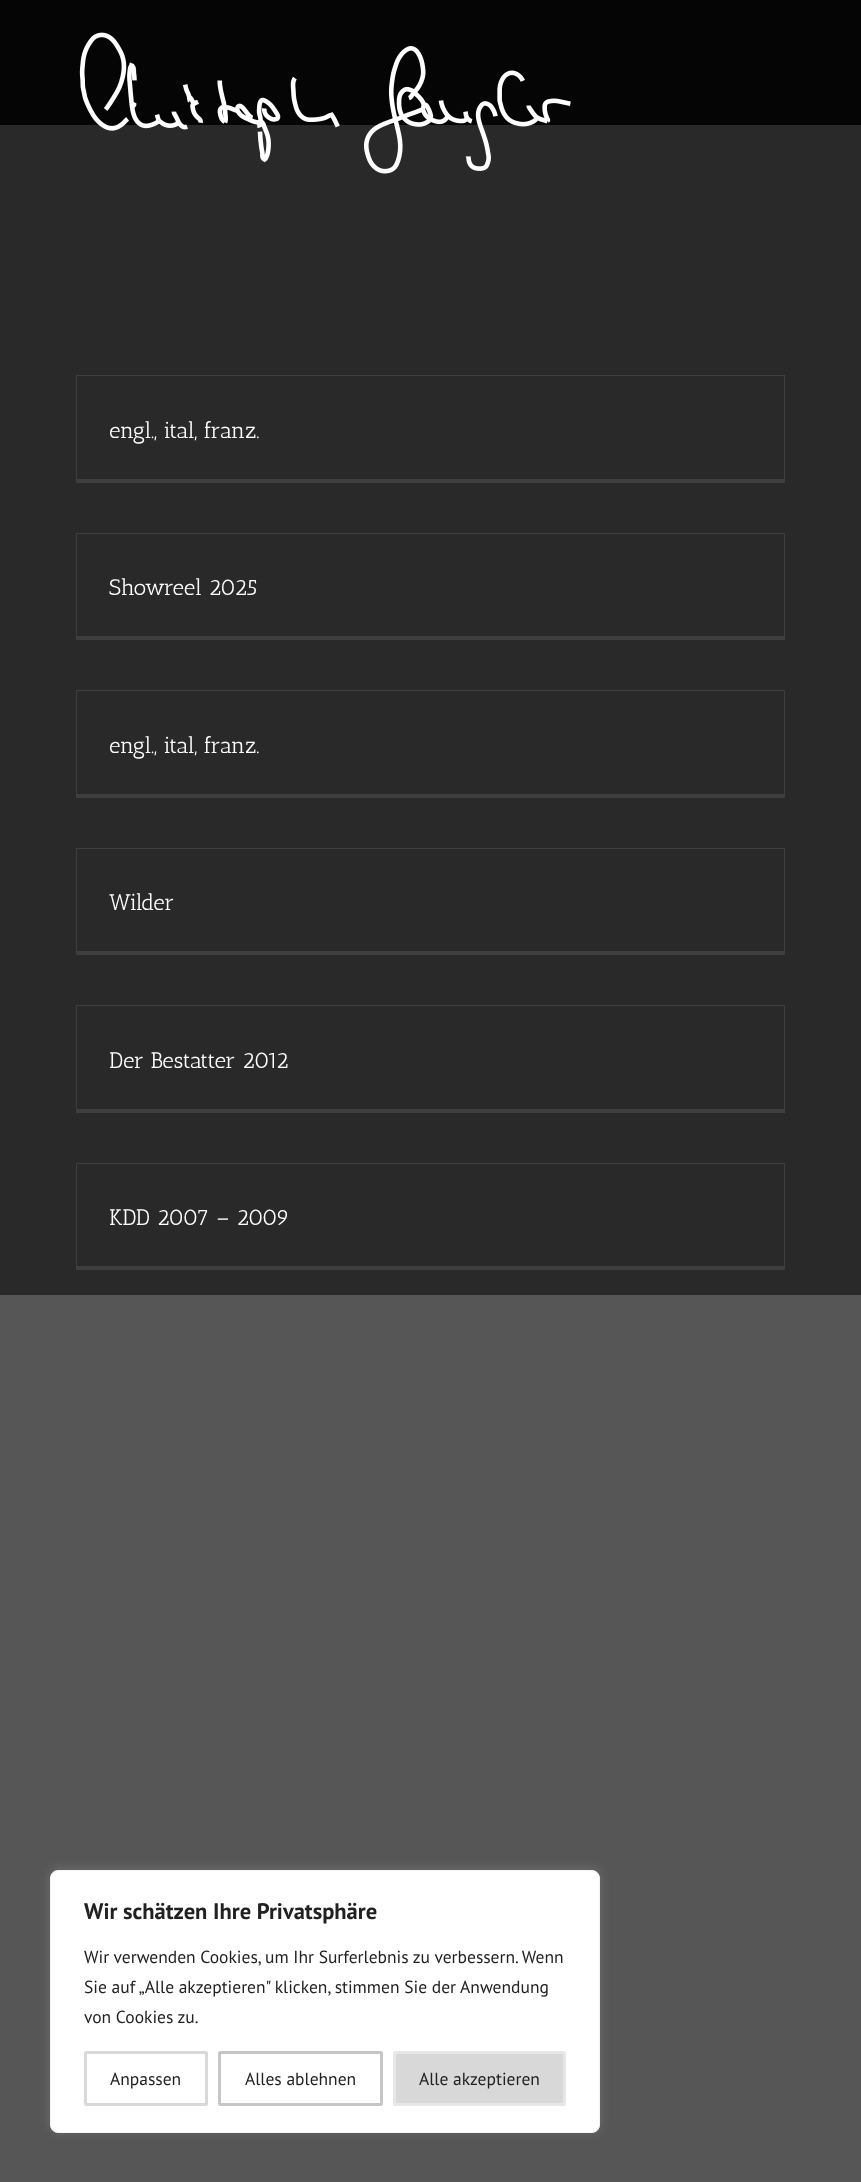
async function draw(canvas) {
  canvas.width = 861
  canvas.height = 2182
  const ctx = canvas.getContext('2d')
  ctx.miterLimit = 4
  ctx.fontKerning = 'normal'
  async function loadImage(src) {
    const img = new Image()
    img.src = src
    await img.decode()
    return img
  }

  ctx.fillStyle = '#565656'
  ctx.fillRect(0, 0, 861, 2182)
  ctx.fillStyle = '#29292a'
  ctx.fillRect(0, 125, 861, 1170)
  ctx.fillStyle = '#050505'
  ctx.fillRect(0, 0, 861, 125)
  ctx.drawImage(await loadImage('image0.png'), 79, 32, 492, 142)
  ctx.fillStyle = '#3e3e3e'
  ctx.fillRect(76, 375, 709, 1)
  ctx.fillRect(784, 375, 1, 108)
  ctx.fillRect(76, 479, 709, 4)
  ctx.fillRect(76, 375, 1, 108)
  ctx.font = '22.5px Antic Slab'
  ctx.fillStyle = '#fff'
  ctx.fillText('engl., ital, franz.', 109, 438)
  ctx.fillStyle = '#3e3e3e'
  ctx.fillRect(76, 533, 709, 1)
  ctx.fillRect(784, 533, 1, 107)
  ctx.fillRect(76, 636, 709, 4)
  ctx.fillRect(76, 533, 1, 107)
  ctx.fillStyle = '#fff'
  ctx.fillText('Showreel 2025', 109, 595)
  ctx.fillStyle = '#3e3e3e'
  ctx.fillRect(76, 690, 709, 1)
  ctx.fillRect(784, 690, 1, 108)
  ctx.fillRect(76, 794, 709, 4)
  ctx.fillRect(76, 690, 1, 108)
  ctx.fillStyle = '#fff'
  ctx.fillText('engl., ital, franz.', 109, 753)
  ctx.fillStyle = '#3e3e3e'
  ctx.fillRect(76, 848, 709, 1)
  ctx.fillRect(784, 848, 1, 107)
  ctx.fillRect(76, 951, 709, 4)
  ctx.fillRect(76, 848, 1, 107)
  ctx.fillStyle = '#fff'
  ctx.fillText('Wilder', 109, 910)
  ctx.fillStyle = '#3e3e3e'
  ctx.fillRect(76, 1005, 709, 1)
  ctx.fillRect(784, 1005, 1, 108)
  ctx.fillRect(76, 1109, 709, 4)
  ctx.fillRect(76, 1005, 1, 108)
  ctx.fillStyle = '#fff'
  ctx.fillText('Der Bestatter 2012', 109, 1068)
  ctx.fillStyle = '#3e3e3e'
  ctx.fillRect(76, 1163, 709, 1)
  ctx.fillRect(784, 1163, 1, 107)
  ctx.fillRect(76, 1266, 709, 4)
  ctx.fillRect(76, 1163, 1, 107)
  ctx.fillStyle = '#fff'
  ctx.fillText('KDD 2007 – 2009', 109, 1225)
  ctx.fillStyle = '#acabab4d'
  ctx.filter = 'blur(6px)'
  ctx.beginPath()
  ctx.roundRect(50, 1869, 550, 262, 8)
  ctx.fill()
  ctx.filter = 'none'
  ctx.fillStyle = '#fff'
  ctx.beginPath()
  ctx.roundRect(50.5, 1870.5, 549, 262, 7.5)
  ctx.fill()
  ctx.strokeStyle = '#f4f4f4'
  ctx.stroke()
  ctx.font = 'bold 22.5px PT Sans'
  ctx.fillStyle = '#212121'
  ctx.fillText('Wir schätzen Ihre Privatsphäre', 84, 1919)
  ctx.font = '17.5px PT Sans'
  ctx.fillText('Wir verwenden Cookies, um Ihr Surferlebnis zu verbessern. Wenn', 84, 1963)
  ctx.fillText('Sie auf „Alle akzeptieren" klicken, stimmen Sie der Anwendung', 84, 1993)
  ctx.fillText('von Cookies zu.', 84, 2023)
  ctx.beginPath()
  ctx.roundRect(85.5, 2052.5, 121, 52, 1)
  ctx.strokeStyle = '#d9d9d9'
  ctx.lineWidth = 3
  ctx.stroke()
  ctx.fillText('Anpassen', 110, 2085)
  ctx.beginPath()
  ctx.roundRect(219.5, 2052.5, 162, 52, 1)
  ctx.strokeStyle = '#c6c6c6'
  ctx.stroke()
  ctx.fillText('Alles ablehnen', 245, 2085)
  ctx.fillStyle = '#d8d8d8'
  ctx.beginPath()
  ctx.roundRect(394.5, 2052.5, 170, 52, 1)
  ctx.fill()
  ctx.strokeStyle = '#e7e7e7'
  ctx.stroke()
  ctx.fillStyle = '#212121'
  ctx.fillText('Alle akzeptieren', 419, 2085)
}

draw(document.querySelector('canvas'))
